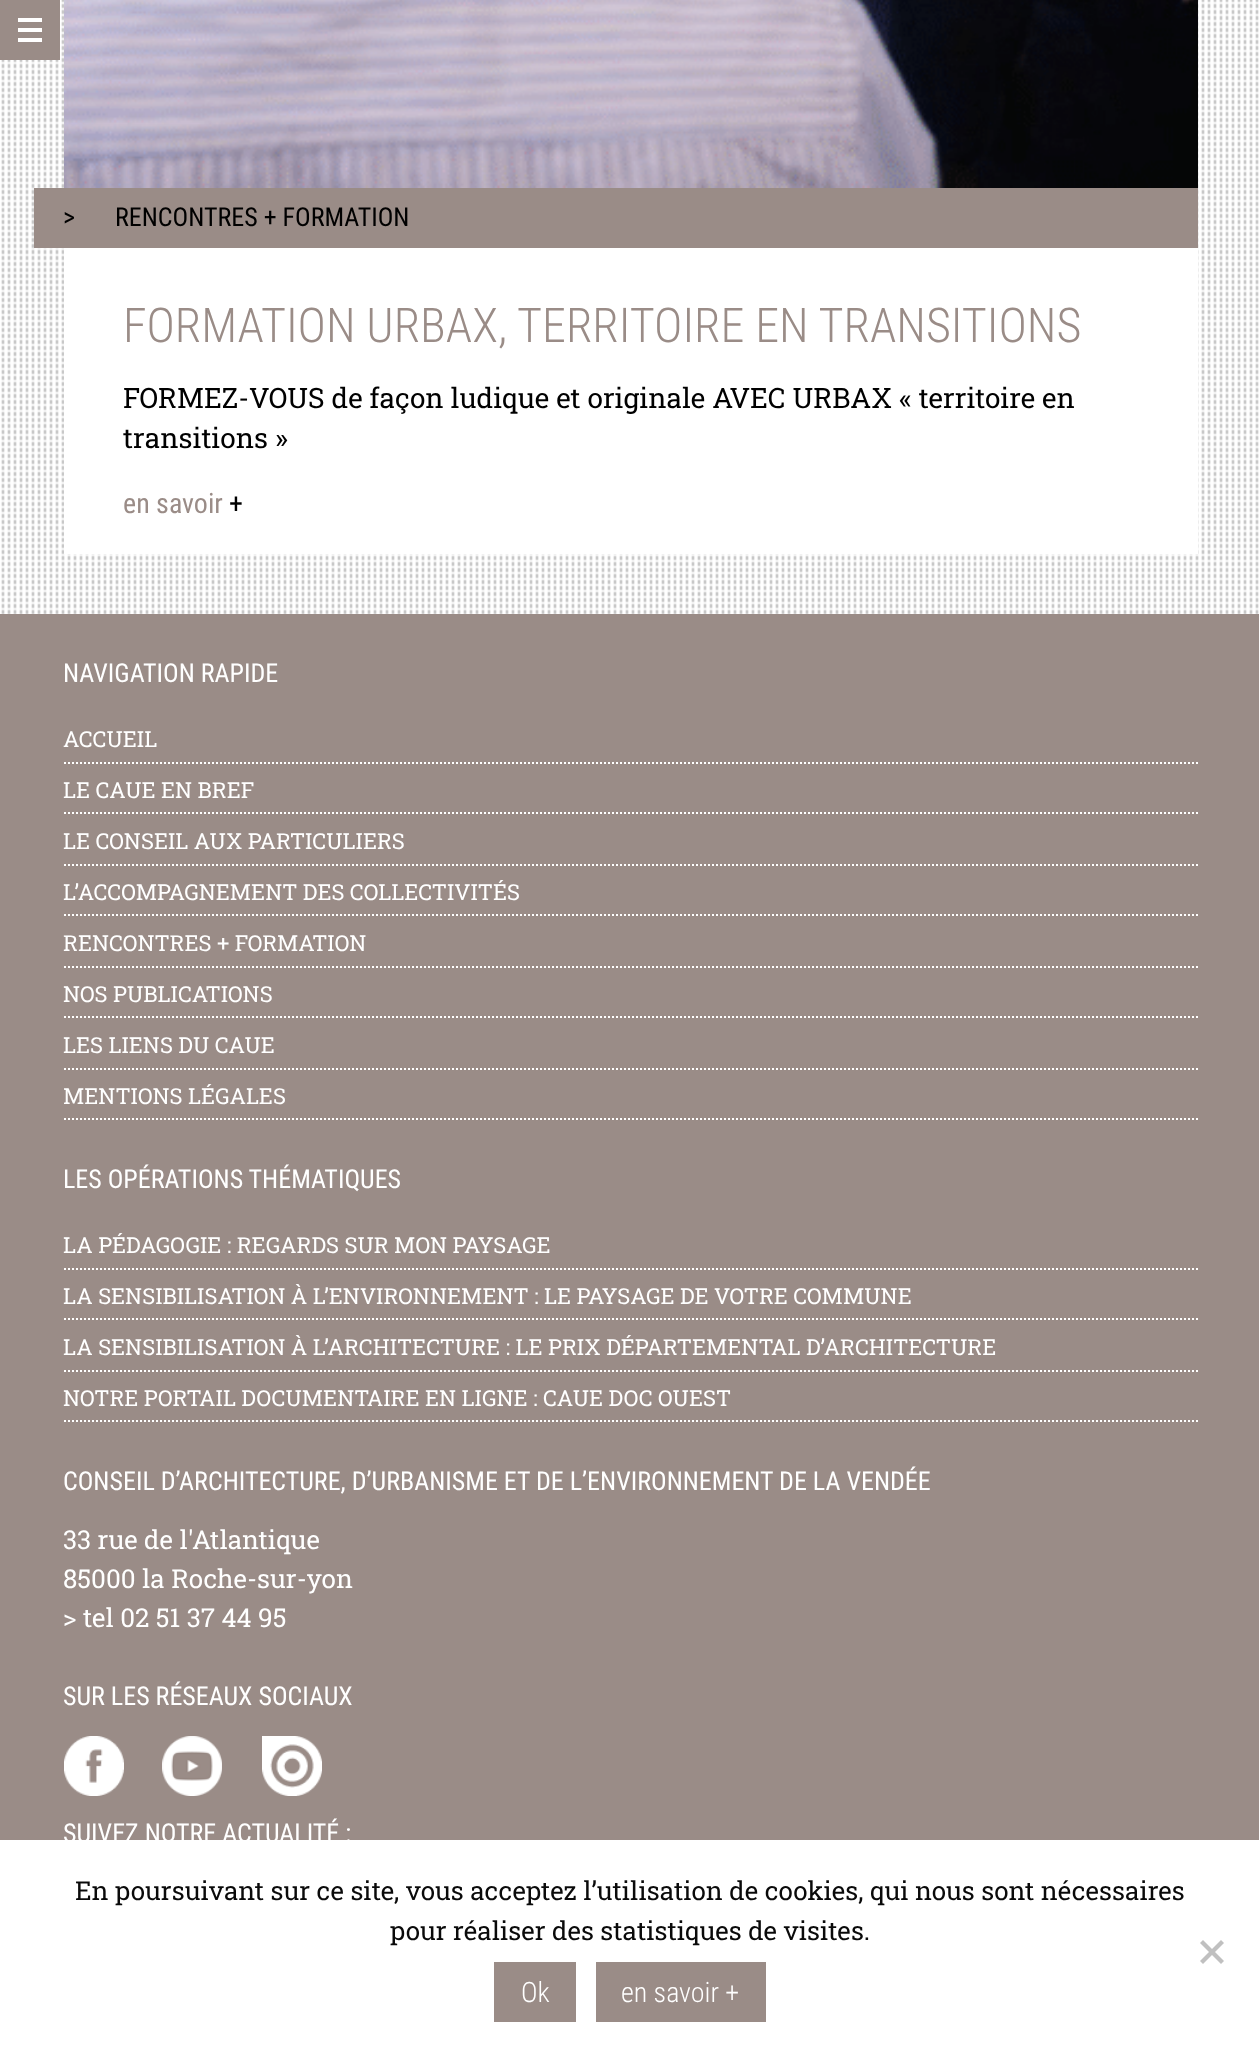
async function draw(canvas) {
  canvas.width = 1259
  canvas.height = 2061
  const ctx = canvas.getContext('2d')
  ctx.miterLimit = 4
  ctx.fontKerning = 'normal'
  async function loadImage(src) {
    const img = new Image()
    img.src = src
    await img.decode()
    return img
  }

  ctx.fillStyle = '#fff'
  ctx.fillRect(0, 0, 1259, 2061)
  ctx.drawImage(await loadImage('image0.png'), 1, 0, 1258, 614)
  ctx.fillStyle = '#9a8c87'
  ctx.fillRect(0, 0, 60, 60)
  ctx.fillStyle = '#fff'
  ctx.fillRect(18, 28, 24, 4)
  ctx.fillRect(18, 18, 24, 4)
  ctx.fillRect(18, 38, 24, 4)
  ctx.fillRect(64, 248, 1134, 306)
  ctx.drawImage(await loadImage('image1.png'), 64, 0, 1134, 188)
  ctx.fillStyle = '#9a8c87'
  ctx.fillRect(34, 188, 1164, 60)
  ctx.font = '26px Roboto Condensed'
  ctx.fillStyle = '#000'
  ctx.fillText('>', 63, 226)
  ctx.fillText('RENCONTRES + FORMATION', 115, 226)
  ctx.font = '300 48px Roboto Condensed'
  ctx.fillStyle = '#9a8c87'
  ctx.fillText('FORMATION URBAX, TERRITOIRE EN TRANSITIONS', 123, 342)
  ctx.font = '28px Roboto Slab'
  ctx.fillStyle = '#000'
  ctx.fillText('FORMEZ-VOUS de façon ludique et originale AVEC URBAX « territoire en', 123, 408)
  ctx.fillText('transitions »', 123, 448)
  ctx.font = '28px Roboto Condensed'
  ctx.fillStyle = '#9a8c87'
  ctx.fillText('en savoir', 123, 513)
  ctx.fillStyle = '#000'
  ctx.fillText('+', 229, 513)
  ctx.fillStyle = '#9a8c87'
  ctx.fillRect(0, 614, 1259, 1226)
  ctx.font = '26px Roboto Condensed'
  ctx.fillStyle = '#fff'
  ctx.fillText('NAVIGATION RAPIDE', 63, 682)
  ctx.beginPath()
  ctx.moveTo(64, 763)
  ctx.lineTo(1198, 763)
  ctx.strokeStyle = '#fff'
  ctx.lineWidth = 2
  ctx.setLineDash([2, 2])
  ctx.stroke()
  ctx.font = '22px Roboto Slab'
  ctx.fillText('ACCUEIL', 63, 747)
  ctx.beginPath()
  ctx.moveTo(64, 813)
  ctx.lineTo(1198, 813)
  ctx.stroke()
  ctx.fillText('LE CAUE EN BREF', 63, 798)
  ctx.beginPath()
  ctx.moveTo(64, 865)
  ctx.lineTo(1198, 865)
  ctx.stroke()
  ctx.fillText('LE CONSEIL AUX PARTICULIERS', 63, 849)
  ctx.beginPath()
  ctx.moveTo(64, 915)
  ctx.lineTo(1198, 915)
  ctx.stroke()
  ctx.fillText('L’ACCOMPAGNEMENT DES COLLECTIVITÉS', 63, 900)
  ctx.beginPath()
  ctx.moveTo(64, 967)
  ctx.lineTo(1198, 967)
  ctx.stroke()
  ctx.fillText('RENCONTRES + FORMATION', 63, 951)
  ctx.beginPath()
  ctx.moveTo(64, 1017)
  ctx.lineTo(1198, 1017)
  ctx.stroke()
  ctx.fillText('NOS PUBLICATIONS', 63, 1002)
  ctx.beginPath()
  ctx.moveTo(64, 1069)
  ctx.lineTo(1198, 1069)
  ctx.stroke()
  ctx.fillText('LES LIENS DU CAUE', 63, 1053)
  ctx.beginPath()
  ctx.moveTo(64, 1119)
  ctx.lineTo(1198, 1119)
  ctx.stroke()
  ctx.fillText('MENTIONS LÉGALES', 63, 1104)
  ctx.font = '26px Roboto Condensed'
  ctx.fillText('LES OPÉRATIONS THÉMATIQUES', 63, 1188)
  ctx.beginPath()
  ctx.moveTo(64, 1269)
  ctx.lineTo(1198, 1269)
  ctx.stroke()
  ctx.font = '22px Roboto Slab'
  ctx.fillText('LA PÉDAGOGIE : REGARDS SUR MON PAYSAGE', 63, 1253)
  ctx.beginPath()
  ctx.moveTo(64, 1319)
  ctx.lineTo(1198, 1319)
  ctx.stroke()
  ctx.fillText('LA SENSIBILISATION À L’ENVIRONNEMENT : LE PAYSAGE DE VOTRE COMMUNE', 63, 1304)
  ctx.beginPath()
  ctx.moveTo(64, 1371)
  ctx.lineTo(1198, 1371)
  ctx.stroke()
  ctx.fillText('LA SENSIBILISATION À L’ARCHITECTURE : LE PRIX DÉPARTEMENTAL D’ARCHITECTURE', 63, 1355)
  ctx.beginPath()
  ctx.moveTo(64, 1421)
  ctx.lineTo(1198, 1421)
  ctx.stroke()
  ctx.fillText('NOTRE PORTAIL DOCUMENTAIRE EN LIGNE : CAUE DOC OUEST', 63, 1406)
  ctx.font = '26px Roboto Condensed'
  ctx.fillText('CONSEIL D’ARCHITECTURE, D’URBANISME ET DE L’ENVIRONNEMENT DE LA VENDÉE', 63, 1490)
  ctx.font = '26px Roboto Slab'
  ctx.fillText('33 rue de l\'Atlantique', 63, 1549)
  ctx.fillText('85000 la Roche-sur-yon', 63, 1588)
  ctx.fillText('> tel 02 51 37 44 95', 63, 1627)
  ctx.font = '26px Roboto Condensed'
  ctx.fillText('SUR LES RÉSEAUX SOCIAUX', 63, 1705)
  ctx.drawImage(await loadImage('image2.png'), 64, 1736, 60, 60)
  ctx.drawImage(await loadImage('image3.png'), 162, 1736, 60, 60)
  ctx.drawImage(await loadImage('image4.png'), 262, 1736, 60, 60)
  ctx.fillText('SUIVEZ NOTRE ACTUALITÉ :', 63, 1842)
  ctx.font = '26px Roboto Slab'
  ctx.fillStyle = '#0a0a0a'
  ctx.fillText('En poursuivant sur ce site, vous acceptez l’utilisation de cookies, qui nous sont nécessaires', 75, 1900)
  ctx.fillText('pour réaliser des statistiques de visites.', 390, 1940)
  ctx.fillStyle = '#c0c0c0'
  ctx.beginPath()
  ctx.moveTo(1221, 1940)
  ctx.lineTo(1224, 1943)
  ctx.lineTo(1203, 1964)
  ctx.lineTo(1200, 1961)
  ctx.closePath()
  ctx.fill()
  ctx.beginPath()
  ctx.moveTo(1200, 1943)
  ctx.lineTo(1203, 1940)
  ctx.lineTo(1224, 1961)
  ctx.lineTo(1221, 1964)
  ctx.closePath()
  ctx.fill()
  ctx.fillStyle = '#9a8c87'
  ctx.fillRect(494, 1962, 82, 60)
  ctx.font = '300 28px Roboto Condensed'
  ctx.fillStyle = '#fff'
  ctx.fillText('Ok', 521, 2002)
  ctx.fillStyle = '#9a8c87'
  ctx.fillRect(596, 1962, 170, 60)
  ctx.fillStyle = '#fff'
  ctx.fillText('en savoir +', 621, 2002)
}

draw(document.querySelector('canvas'))
